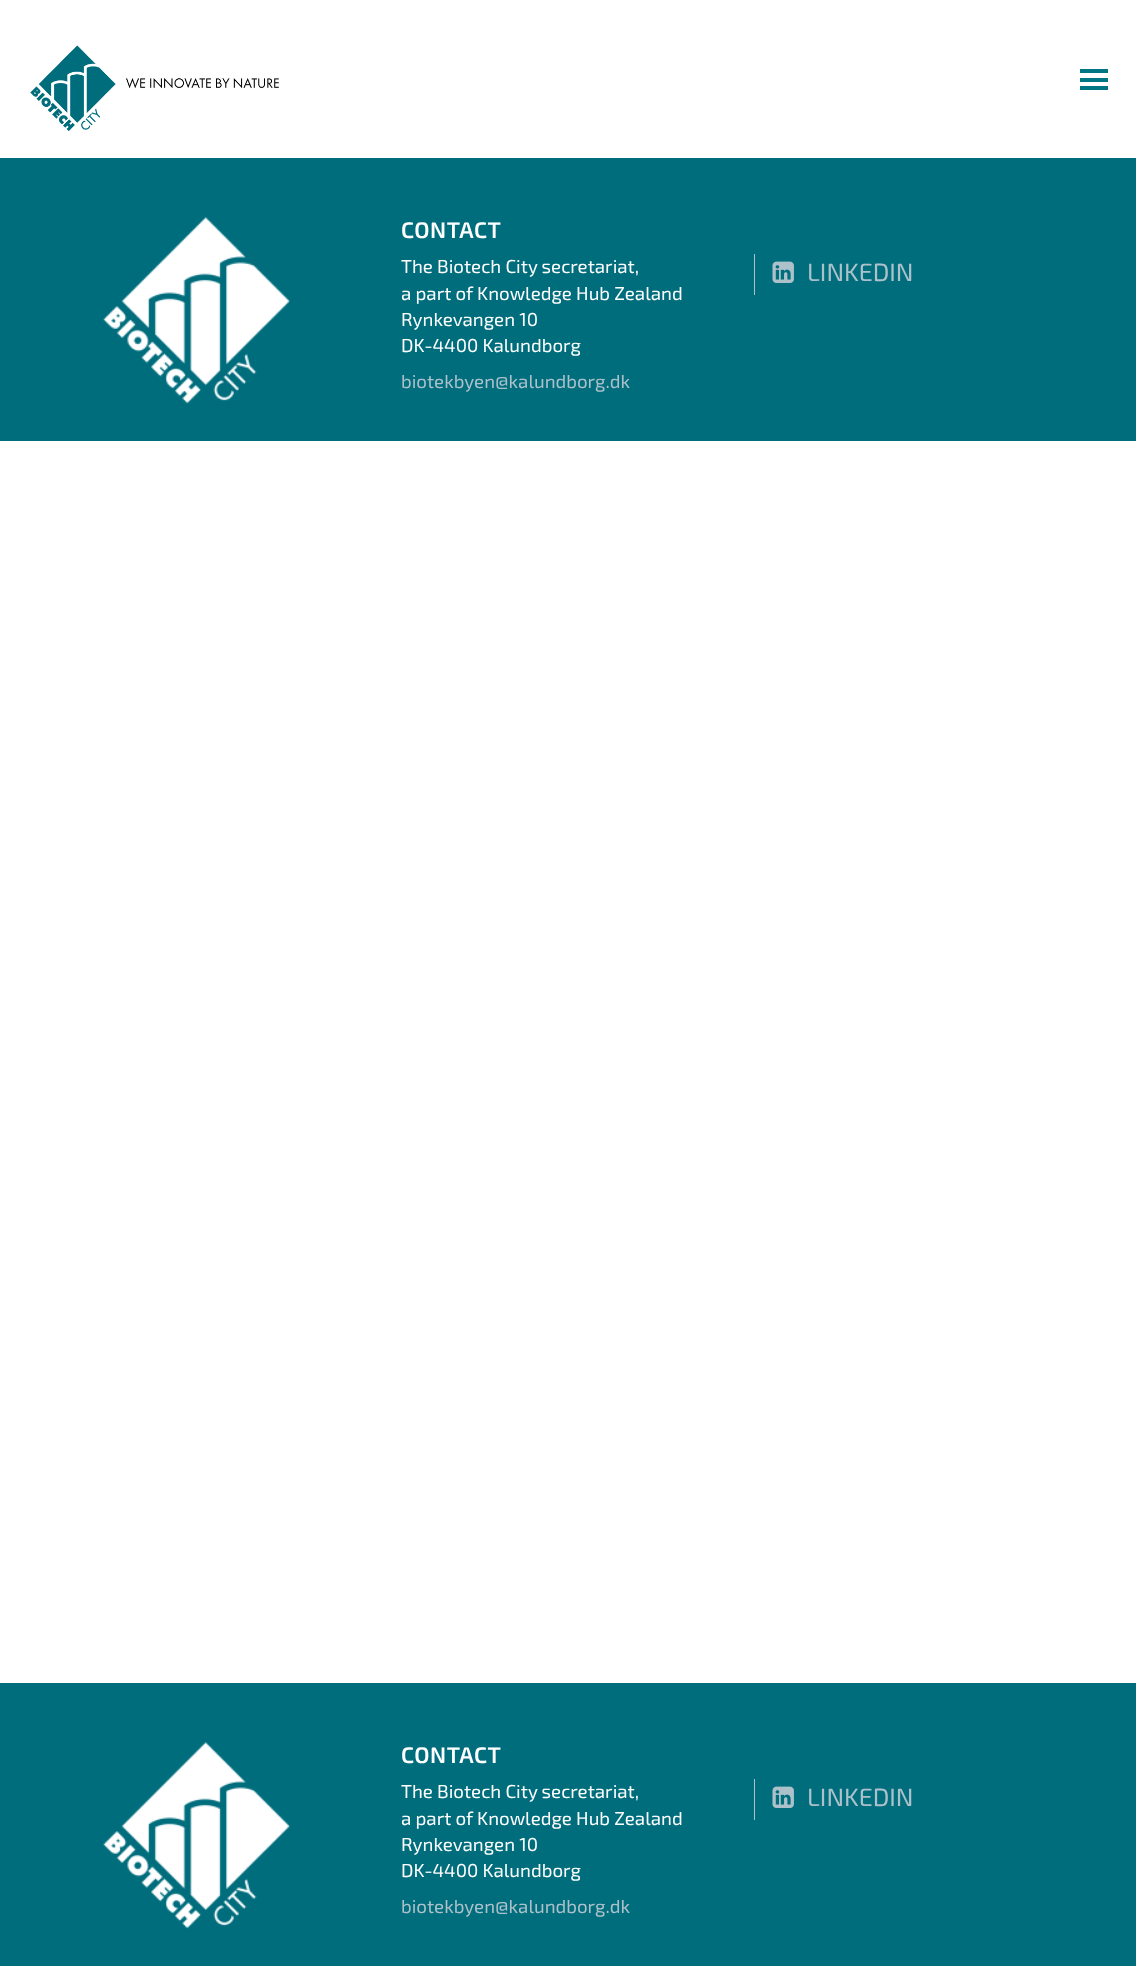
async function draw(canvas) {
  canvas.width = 1136
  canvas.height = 1966
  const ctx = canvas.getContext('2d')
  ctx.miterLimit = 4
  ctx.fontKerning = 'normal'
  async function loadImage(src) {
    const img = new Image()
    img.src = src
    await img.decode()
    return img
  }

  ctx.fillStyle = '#fff'
  ctx.fillRect(0, 0, 1136, 1966)
  ctx.drawImage(await loadImage('image0.png'), 30, 45, 249, 87)
  ctx.fillStyle = '#007583'
  ctx.fillRect(1080, 78, 28, 4)
  ctx.fillRect(1080, 69, 28, 4)
  ctx.fillRect(1080, 86, 28, 4)
  ctx.fillStyle = '#006d7d'
  ctx.fillRect(0, 158, 1136, 283)
  ctx.drawImage(await loadImage('image1.png'), 103, 217, 187, 187)
  ctx.letterSpacing = '0.5px'
  ctx.font = '600 22.5px "Exo 2"'
  ctx.fillStyle = '#fff'
  ctx.fillText('CONTACT', 401, 238)
  ctx.letterSpacing = '0px'
  ctx.font = '18.75px "Exo 2"'
  ctx.fillText('The Biotech City secretariat,', 401, 273)
  ctx.fillText('a part of Knowledge Hub Zealand', 401, 300)
  ctx.fillText('Rynkevangen 10', 401, 326)
  ctx.fillText('DK-4400 Kalundborg', 401, 352)
  ctx.fillStyle = '#acc1c9'
  ctx.fillText('biotekbyen@kalundborg.dk', 401, 388)
  ctx.fillRect(754, 254, 1, 41)
  ctx.drawImage(await loadImage('image2.png'), 772, 261, 22, 22)
  ctx.font = '25px "Exo 2"'
  ctx.fillText('LINKEDIN', 807, 281)
  ctx.fillStyle = '#006d7d'
  ctx.fillRect(0, 1683, 1136, 283)
  ctx.drawImage(await loadImage('image1.png'), 103, 1742, 187, 187)
  ctx.letterSpacing = '0.5px'
  ctx.font = '600 22.5px "Exo 2"'
  ctx.fillStyle = '#fff'
  ctx.fillText('CONTACT', 401, 1763)
  ctx.letterSpacing = '0px'
  ctx.font = '18.75px "Exo 2"'
  ctx.fillText('The Biotech City secretariat,', 401, 1798)
  ctx.fillText('a part of Knowledge Hub Zealand', 401, 1825)
  ctx.fillText('Rynkevangen 10', 401, 1851)
  ctx.fillText('DK-4400 Kalundborg', 401, 1877)
  ctx.fillStyle = '#acc1c9'
  ctx.fillText('biotekbyen@kalundborg.dk', 401, 1913)
  ctx.fillRect(754, 1779, 1, 41)
  ctx.drawImage(await loadImage('image2.png'), 772, 1786, 22, 22)
  ctx.font = '25px "Exo 2"'
  ctx.fillText('LINKEDIN', 807, 1806)
}

draw(document.querySelector('canvas'))
